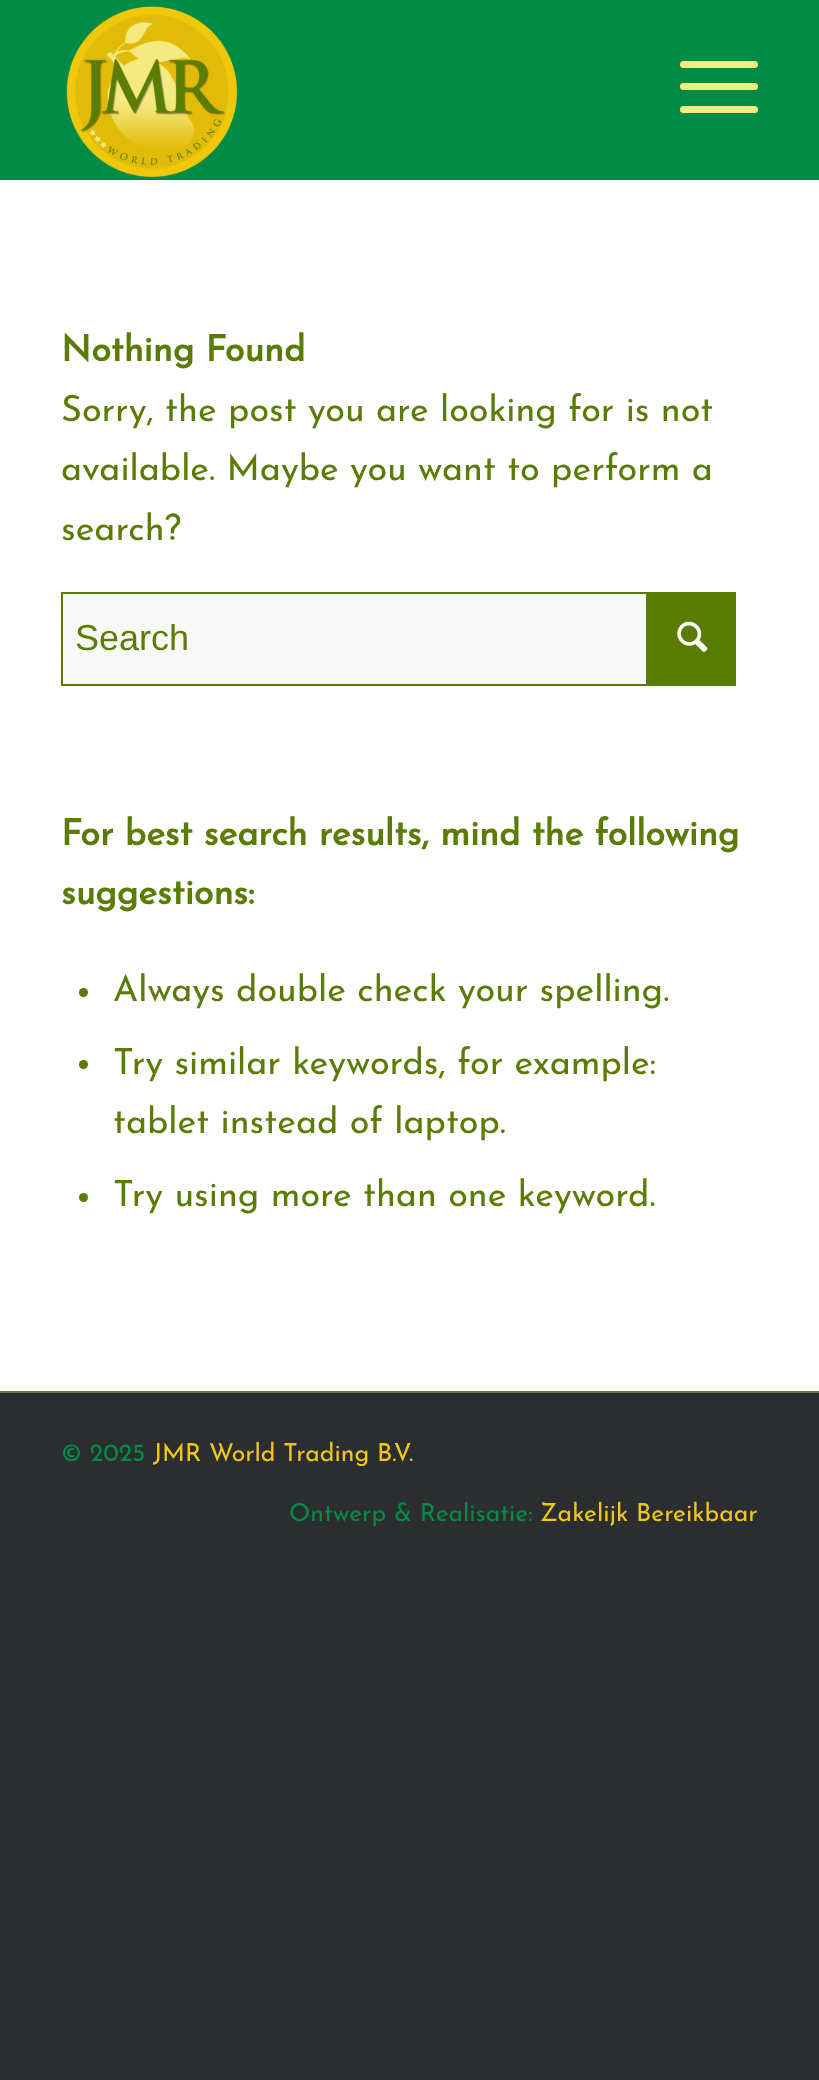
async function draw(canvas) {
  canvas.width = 819
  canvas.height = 2080
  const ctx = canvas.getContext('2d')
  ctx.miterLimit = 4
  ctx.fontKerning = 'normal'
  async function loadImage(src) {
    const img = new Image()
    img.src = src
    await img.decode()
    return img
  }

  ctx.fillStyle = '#2b2d2f'
  ctx.fillRect(0, 0, 819, 2080)
  ctx.fillStyle = '#028b47'
  ctx.fillRect(0, 0, 819, 180)
  ctx.drawImage(await loadImage('image0.png'), 66, 6, 172, 172)
  ctx.fillStyle = '#f6ea82'
  ctx.beginPath()
  ctx.roundRect(680, 83, 78, 7, 3.5)
  ctx.fill()
  ctx.beginPath()
  ctx.roundRect(680, 61, 78, 7, 3.5)
  ctx.fill()
  ctx.beginPath()
  ctx.roundRect(680, 106, 78, 7, 3.5)
  ctx.fill()
  ctx.fillStyle = '#fff'
  ctx.fillRect(0, 180, 819, 1211)
  ctx.font = 'bold 36px Josefin Sans'
  ctx.fillStyle = '#5a7c03'
  ctx.fillText('Nothing Found', 61, 361)
  ctx.font = '100 36px Josefin Sans'
  ctx.fillText('Sorry, the post you are looking for is not', 61, 421)
  ctx.fillText('available. Maybe you want to perform a', 61, 480)
  ctx.fillText('search?', 61, 540)
  ctx.fillStyle = '#f8f8f8'
  ctx.fillRect(63, 594, 583, 90)
  ctx.strokeStyle = '#5a7c03'
  ctx.lineWidth = 2
  ctx.strokeRect(62, 593, 673, 92)
  ctx.font = '36px Liberation Sans'
  ctx.fillStyle = '#5a7c03'
  ctx.fillText('Search', 75, 650)
  ctx.fillRect(646, 594, 88, 90)
  ctx.drawImage(await loadImage('image1.png'), 677, 621, 31, 31)
  ctx.font = 'bold 36px Josefin Sans'
  ctx.fillText('For best search results, mind the following', 61, 845)
  ctx.fillText('suggestions:', 61, 904)
  ctx.beginPath()
  ctx.arc(83.5, 992.5, 4.5, 0, 2 * Math.PI)
  ctx.fill()
  ctx.font = '100 36px Josefin Sans'
  ctx.fillText('Always double check your spelling.', 113, 1001)
  ctx.beginPath()
  ctx.arc(83.5, 1064.5, 4.5, 0, 2 * Math.PI)
  ctx.fill()
  ctx.fillText('Try similar keywords, for example:', 113, 1074)
  ctx.fillText('tablet instead of laptop.', 113, 1133)
  ctx.beginPath()
  ctx.arc(83.5, 1197.5, 4.5, 0, 2 * Math.PI)
  ctx.fill()
  ctx.fillText('Try using more than one keyword.', 113, 1206)
  ctx.fillStyle = '#5c803a'
  ctx.fillRect(0, 1391, 819, 2)
  ctx.font = '100 24.75px Josefin Sans'
  ctx.fillStyle = '#028b47'
  ctx.fillText('© 2025', 61, 1461)
  ctx.fillStyle = '#efc818'
  ctx.fillText('JMR World Trading B.V.', 153, 1461)
  ctx.fillStyle = '#028b47'
  ctx.fillText('Ontwerp & Realisatie:', 289, 1521)
  ctx.fillStyle = '#efc818'
  ctx.fillText('Zakelijk Bereikbaar', 540, 1521)
}

draw(document.querySelector('canvas'))
